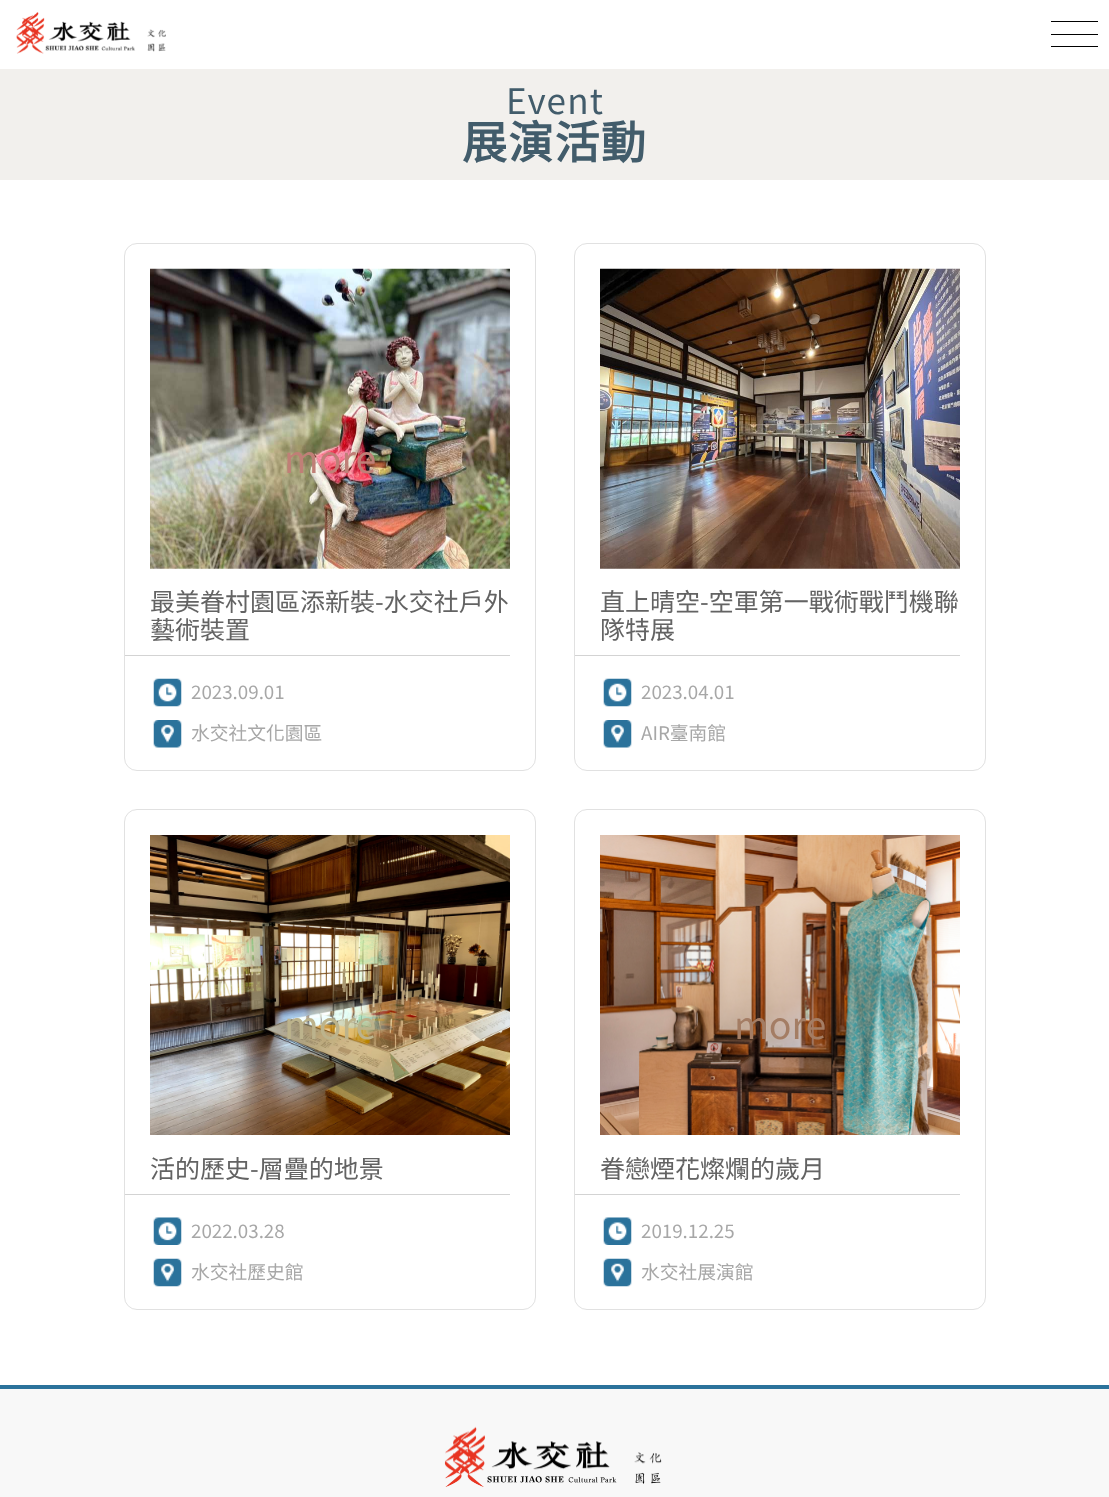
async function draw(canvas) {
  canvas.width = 1109
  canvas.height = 1497
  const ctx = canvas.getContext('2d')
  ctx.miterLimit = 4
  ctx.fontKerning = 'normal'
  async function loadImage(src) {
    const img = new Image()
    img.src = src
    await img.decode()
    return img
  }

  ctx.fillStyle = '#fff'
  ctx.fillRect(0, 0, 1109, 1497)
  ctx.drawImage(await loadImage('image0.png'), 16, 12, 150, 42)
  ctx.fillStyle = '#000'
  ctx.fillRect(1051, 21, 47, 1)
  ctx.fillRect(1051, 34, 47, 1)
  ctx.fillRect(1051, 46, 47, 1)
  ctx.fillStyle = '#f2f0ed'
  ctx.fillRect(0, 69, 1109, 111)
  ctx.letterSpacing = '1.25px'
  ctx.font = '100 35px Noto Sans TC'
  ctx.fillStyle = '#425c6b'
  ctx.fillText('Event', 506, 114)
  ctx.font = 'bold 45px Noto Sans TC'
  ctx.fillText('展演活動', 462, 159)
  ctx.beginPath()
  ctx.roundRect(124.5, 243.5, 411, 527, 12.5)
  ctx.strokeStyle = '#e1e1e1'
  ctx.stroke()
  ctx.drawImage(await loadImage('image1.png'), 150, 268, 360, 301)
  ctx.letterSpacing = '0px'
  ctx.font = '100 37.5px Noto Sans TC'
  ctx.fillStyle = '#c07f77'
  ctx.fillText('more', 284, 473)
  ctx.fillStyle = '#d3d3d3'
  ctx.fillRect(125, 655, 385, 1)
  ctx.font = '100 25px Noto Sans TC'
  ctx.fillStyle = '#636363'
  ctx.fillText('最美眷村園區添新裝-水交社戶外', 150, 611)
  ctx.fillText('藝術裝置', 150, 639)
  ctx.drawImage(await loadImage('image2.png'), 153, 678, 29, 29)
  ctx.font = '100 18.75px Noto Sans TC'
  ctx.fillStyle = '#a7a7a7'
  ctx.fillText('2023.09.01', 191, 699)
  ctx.drawImage(await loadImage('image3.png'), 153, 720, 29, 28)
  ctx.fillText('水交社文化園區', 191, 740)
  ctx.beginPath()
  ctx.roundRect(574.5, 243.5, 411, 527, 12.5)
  ctx.stroke()
  ctx.drawImage(await loadImage('image4.png'), 600, 268, 360, 301)
  ctx.fillStyle = '#d3d3d3'
  ctx.fillRect(575, 655, 385, 1)
  ctx.font = '100 25px Noto Sans TC'
  ctx.fillStyle = '#636363'
  ctx.fillText('直上晴空-空軍第一戰術戰鬥機聯', 600, 611)
  ctx.fillText('隊特展', 600, 639)
  ctx.drawImage(await loadImage('image5.png'), 603, 678, 29, 29)
  ctx.font = '100 18.75px Noto Sans TC'
  ctx.fillStyle = '#a7a7a7'
  ctx.fillText('2023.04.01', 641, 699)
  ctx.drawImage(await loadImage('image6.png'), 603, 720, 29, 28)
  ctx.fillText('AIR臺南館', 641, 740)
  ctx.beginPath()
  ctx.roundRect(124.5, 809.5, 411, 500, 12.5)
  ctx.stroke()
  ctx.drawImage(await loadImage('image7.png'), 150, 835, 360, 300)
  ctx.font = '100 37.5px Noto Sans TC'
  ctx.fillStyle = '#bcb38c'
  ctx.fillText('more', 284, 1039)
  ctx.fillStyle = '#d3d3d3'
  ctx.fillRect(125, 1194, 385, 1)
  ctx.font = '100 25px Noto Sans TC'
  ctx.fillStyle = '#636363'
  ctx.fillText('活的歷史-層疊的地景', 150, 1178)
  ctx.drawImage(await loadImage('image8.png'), 153, 1217, 29, 28)
  ctx.font = '100 18.75px Noto Sans TC'
  ctx.fillStyle = '#a7a7a7'
  ctx.fillText('2022.03.28', 191, 1238)
  ctx.drawImage(await loadImage('image9.png'), 153, 1258, 29, 29)
  ctx.fillText('水交社歷史館', 191, 1279)
  ctx.beginPath()
  ctx.roundRect(574.5, 809.5, 411, 500, 12.5)
  ctx.stroke()
  ctx.drawImage(await loadImage('image10.png'), 600, 835, 360, 300)
  ctx.font = '100 37.5px Noto Sans TC'
  ctx.fillStyle = '#a47d64'
  ctx.fillText('more', 734, 1039)
  ctx.fillStyle = '#d3d3d3'
  ctx.fillRect(575, 1194, 385, 1)
  ctx.font = '100 25px Noto Sans TC'
  ctx.fillStyle = '#636363'
  ctx.fillText('眷戀煙花燦爛的歲月', 600, 1178)
  ctx.drawImage(await loadImage('image11.png'), 603, 1217, 29, 28)
  ctx.font = '100 18.75px Noto Sans TC'
  ctx.fillStyle = '#a7a7a7'
  ctx.fillText('2019.12.25', 641, 1238)
  ctx.drawImage(await loadImage('image12.png'), 603, 1258, 29, 29)
  ctx.fillText('水交社展演館', 641, 1279)
  ctx.fillStyle = '#f8f8f8'
  ctx.fillRect(0, 1389, 1109, 108)
  ctx.fillStyle = '#2b729b'
  ctx.fillRect(0, 1385, 1109, 4)
  ctx.drawImage(await loadImage('image13.png'), 444, 1426, 218, 61)
}

draw(document.querySelector('canvas'))
